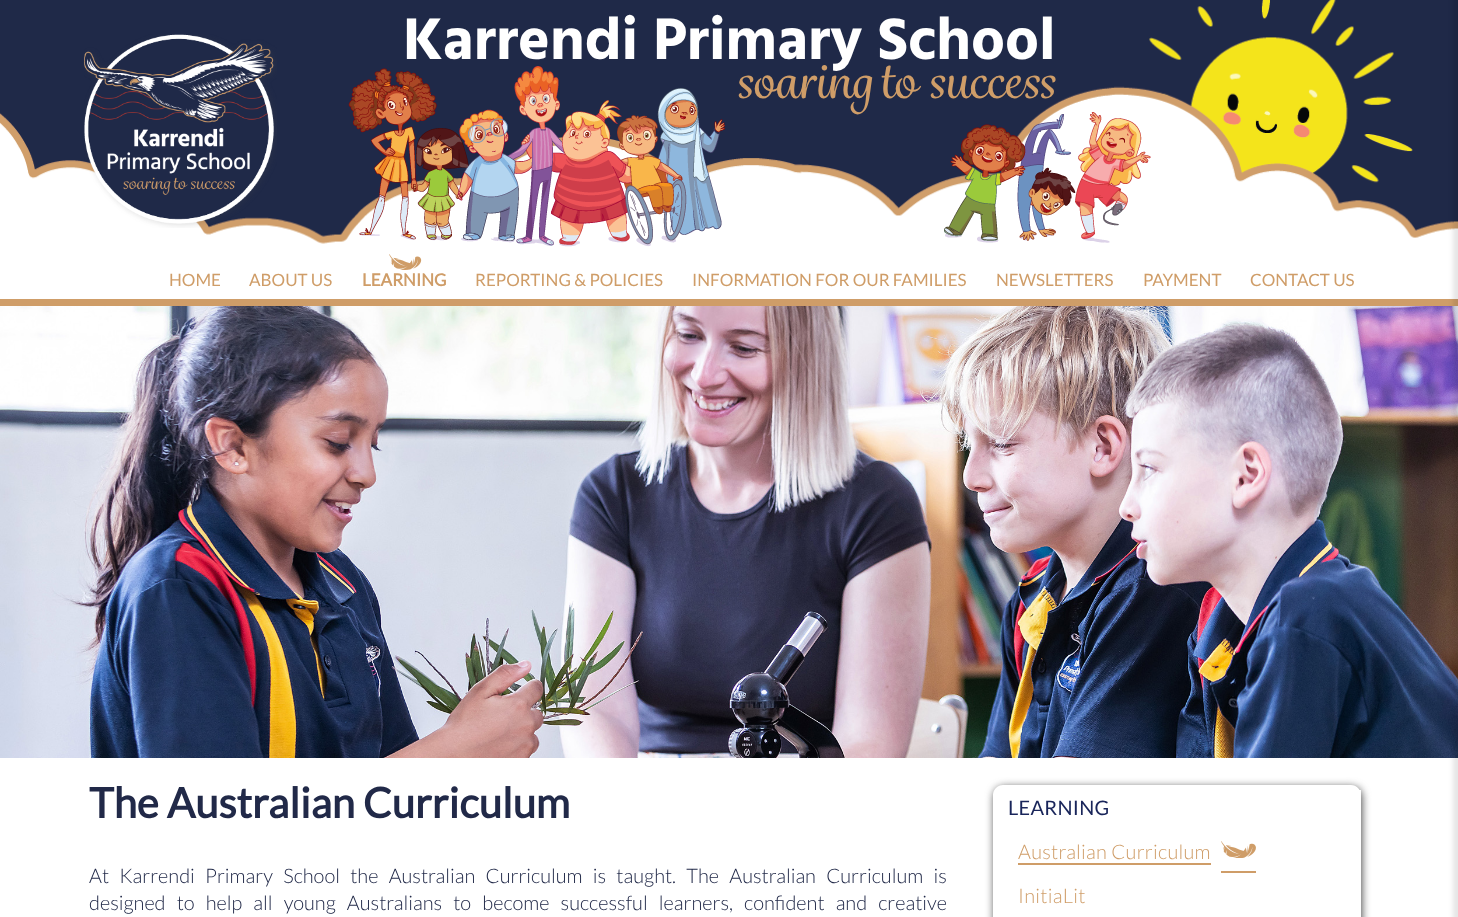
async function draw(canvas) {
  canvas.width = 1458
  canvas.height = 917
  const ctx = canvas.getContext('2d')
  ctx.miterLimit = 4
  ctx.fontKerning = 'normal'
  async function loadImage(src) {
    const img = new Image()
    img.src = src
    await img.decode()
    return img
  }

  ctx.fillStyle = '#fff'
  ctx.fillRect(0, 0, 1458, 917)
  ctx.drawImage(await loadImage('image0.png'), 0, 0, 1458, 296)
  ctx.font = 'bold 60px Hind'
  ctx.fillText('Karrendi Primary School', 403, 59)
  ctx.font = '500 53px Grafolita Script'
  ctx.fillStyle = '#cf9d68'
  ctx.fillText('soaring to success', 735, 98)
  ctx.drawImage(await loadImage('image1.png'), 348, 66, 377, 181)
  ctx.drawImage(await loadImage('image2.png'), 944, 112, 207, 131)
  ctx.fillRect(0, 299, 1458, 7)
  ctx.drawImage(await loadImage('image5.png'), 0, 306, 1458, 452)
  ctx.fillStyle = '#0000001a'
  ctx.filter = 'blur(2.5px)'
  ctx.beginPath()
  ctx.rect(1453, -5, 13, 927)
  ctx.fill()
  ctx.filter = 'none'
  ctx.drawImage(await loadImage('image3.png'), 84, 34, 193, 194)
  ctx.font = '17px Lato'
  ctx.fillStyle = '#cf9d68'
  ctx.fillText('HOME', 169, 286)
  ctx.fillText('ABOUT US', 249, 286)
  ctx.drawImage(await loadImage('image4.png'), 389, 254, 33, 16)
  ctx.font = 'bold 17px Lato'
  ctx.fillText('LEARNING', 362, 286)
  ctx.font = '17px Lato'
  ctx.fillText('REPORTING & POLICIES', 475, 286)
  ctx.fillText('INFORMATION FOR OUR FAMILIES', 692, 286)
  ctx.fillText('NEWSLETTERS', 996, 286)
  ctx.fillText('PAYMENT', 1143, 286)
  ctx.fillText('CONTACT US', 1250, 286)
  ctx.font = 'bold 41.75px Lato'
  ctx.fillStyle = '#212948'
  ctx.fillText('The Australian Curriculum', 89, 818)
  ctx.wordSpacing = '6.4px'
  ctx.font = '300 20px Lato'
  ctx.fillText('At Karrendi Primary School the Australian Curriculum is taught. The Australian Curriculum is', 89, 883)
  ctx.wordSpacing = '7.25px'
  ctx.fillText('designed to help all young Australians to become successful learners, confident and creative', 89, 910)
  ctx.save()
  ctx.beginPath()
  ctx.moveTo(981, 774)
  ctx.lineTo(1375, 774)
  ctx.lineTo(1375, 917)
  ctx.lineTo(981, 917)
  ctx.closePath()
  ctx.moveTo(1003, 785)
  ctx.lineTo(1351, 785)
  ctx.bezierCurveTo(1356.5, 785, 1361, 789.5, 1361, 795)
  ctx.lineTo(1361, 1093)
  ctx.bezierCurveTo(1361, 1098.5, 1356.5, 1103, 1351, 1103)
  ctx.lineTo(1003, 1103)
  ctx.bezierCurveTo(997.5, 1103, 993, 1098.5, 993, 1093)
  ctx.lineTo(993, 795)
  ctx.bezierCurveTo(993, 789.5, 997.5, 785, 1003, 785)
  ctx.closePath()
  ctx.clip('evenodd')
  ctx.fillStyle = '#494949'
  ctx.filter = 'blur(4px)'
  ctx.beginPath()
  ctx.roundRect(994, 787, 368, 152, 10)
  ctx.fill()
  ctx.filter = 'none'
  ctx.restore()
  ctx.fillStyle = '#fff'
  ctx.beginPath()
  ctx.roundRect(998, 790, 363, 34, [17, 0, 0, 17])
  ctx.fill()
  ctx.letterSpacing = '0.25px'
  ctx.wordSpacing = '0px'
  ctx.font = '20px Lato'
  ctx.fillStyle = '#19255a'
  ctx.fillText('LEARNING', 1008, 815)
  ctx.fillStyle = '#cf9d68'
  ctx.fillRect(1018, 863, 193, 2)
  ctx.fillRect(1221, 871, 35, 2)
  ctx.font = '300 20px Lato'
  ctx.fillText('Australian Curriculum', 1018, 859)
  ctx.drawImage(await loadImage('image6.png'), 1221, 841, 35, 17)
  ctx.fillText('InitiaLit', 1018, 903)
}

draw(document.querySelector('canvas'))
